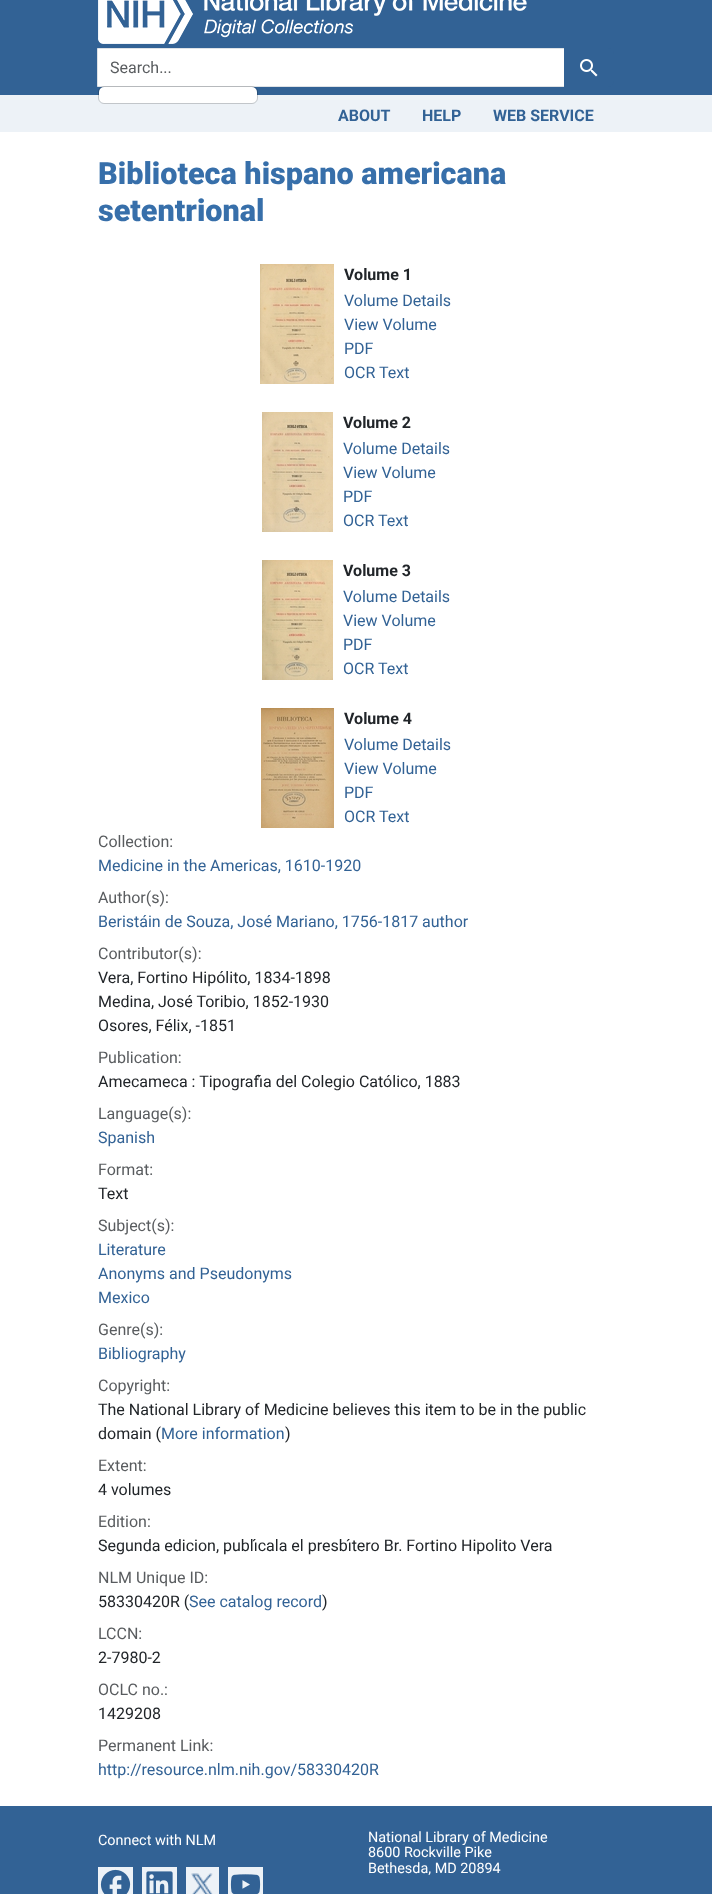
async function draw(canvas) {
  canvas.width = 712
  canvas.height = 1894
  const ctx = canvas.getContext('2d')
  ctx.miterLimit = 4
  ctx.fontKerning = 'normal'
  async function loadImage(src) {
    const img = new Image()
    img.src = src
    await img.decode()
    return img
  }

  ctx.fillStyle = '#fff'
  ctx.fillRect(0, 0, 712, 1894)
  ctx.fillStyle = '#326295'
  ctx.fillRect(0, 0, 712, 95)
  ctx.drawImage(await loadImage('image0.png'), 98, 0, 429, 44)
  ctx.fillStyle = '#fff'
  ctx.beginPath()
  ctx.rect(97.5, 48.5, 467, 38)
  ctx.fill()
  ctx.strokeStyle = '#dee2e6'
  ctx.stroke()
  ctx.font = '16px Roboto'
  ctx.fillStyle = '#595c5f'
  ctx.fillText('Search...', 110, 73)
  ctx.fillStyle = '#edf2f7'
  ctx.fillRect(0, 95, 712, 37)
  ctx.fillStyle = '#fff'
  ctx.beginPath()
  ctx.roundRect(99, 87, 158, 16, 5)
  ctx.fill()
  ctx.beginPath()
  ctx.roundRect(98.5, 86.5, 159, 17, 5.5)
  ctx.strokeStyle = '#0000002e'
  ctx.stroke()
  ctx.fillStyle = '#326295'
  ctx.beginPath()
  ctx.roundRect(564, 48, 50, 39, [0, 6, 6, 0])
  ctx.fill()
  ctx.drawImage(await loadImage('image1.png'), 580, 59, 18, 18)
  ctx.font = 'bold 16px Roboto'
  ctx.fillText('ABOUT', 338, 121)
  ctx.fillText('HELP', 422, 121)
  ctx.fillText('WEB SERVICE', 493, 121)
  ctx.font = '900 30.6px Roboto'
  ctx.fillStyle = '#376faa'
  ctx.fillText('Biblioteca hispano americana', 98, 184)
  ctx.fillText('setentrional', 98, 221)
  ctx.drawImage(await loadImage('image2.png'), 260, 264, 74, 120)
  ctx.font = 'bold 16px Roboto'
  ctx.fillStyle = '#212529'
  ctx.fillText('Volume 1', 344, 280)
  ctx.font = '16px Roboto'
  ctx.fillStyle = '#326295'
  ctx.fillText('Volume Details', 344, 306)
  ctx.fillText('View Volume', 344, 330)
  ctx.fillText('PDF', 344, 354)
  ctx.fillText('OCR Text', 344, 378)
  ctx.drawImage(await loadImage('image3.png'), 262, 412, 71, 120)
  ctx.font = 'bold 16px Roboto'
  ctx.fillStyle = '#212529'
  ctx.fillText('Volume 2', 343, 428)
  ctx.font = '16px Roboto'
  ctx.fillStyle = '#326295'
  ctx.fillText('Volume Details', 343, 454)
  ctx.fillText('View Volume', 343, 478)
  ctx.fillText('PDF', 343, 502)
  ctx.fillText('OCR Text', 343, 526)
  ctx.drawImage(await loadImage('image4.png'), 262, 560, 71, 120)
  ctx.font = 'bold 16px Roboto'
  ctx.fillStyle = '#212529'
  ctx.fillText('Volume 3', 343, 576)
  ctx.font = '16px Roboto'
  ctx.fillStyle = '#326295'
  ctx.fillText('Volume Details', 343, 602)
  ctx.fillText('View Volume', 343, 626)
  ctx.fillText('PDF', 343, 650)
  ctx.fillText('OCR Text', 343, 674)
  ctx.drawImage(await loadImage('image5.png'), 261, 708, 73, 120)
  ctx.font = 'bold 16px Roboto'
  ctx.fillStyle = '#212529'
  ctx.fillText('Volume 4', 344, 724)
  ctx.font = '16px Roboto'
  ctx.fillStyle = '#326295'
  ctx.fillText('Volume Details', 344, 750)
  ctx.fillText('View Volume', 344, 774)
  ctx.fillText('PDF', 344, 798)
  ctx.fillText('OCR Text', 344, 822)
  ctx.fillStyle = '#595c5f'
  ctx.fillText('Collection:', 98, 847)
  ctx.fillStyle = '#326295'
  ctx.fillText('Medicine in the Americas, 1610-1920', 98, 871)
  ctx.fillStyle = '#595c5f'
  ctx.fillText('Author(s):', 98, 903)
  ctx.fillStyle = '#326295'
  ctx.fillText('Beristáin de Souza, José Mariano, 1756-1817 author', 98, 927)
  ctx.fillStyle = '#595c5f'
  ctx.fillText('Contributor(s):', 98, 959)
  ctx.fillStyle = '#212529'
  ctx.fillText('Vera, Fortino Hipólito, 1834-1898', 98, 983)
  ctx.fillText('Medina, José Toribio, 1852-1930', 98, 1007)
  ctx.fillText('Osores, Félix, -1851', 98, 1031)
  ctx.fillStyle = '#595c5f'
  ctx.fillText('Publication:', 98, 1063)
  ctx.fillStyle = '#212529'
  ctx.fillText('Amecameca : Tipografía del Colegio Católico, 1883', 98, 1087)
  ctx.fillStyle = '#595c5f'
  ctx.fillText('Language(s):', 98, 1119)
  ctx.fillStyle = '#326295'
  ctx.fillText('Spanish', 98, 1143)
  ctx.fillStyle = '#595c5f'
  ctx.fillText('Format:', 98, 1175)
  ctx.fillStyle = '#212529'
  ctx.fillText('Text', 98, 1199)
  ctx.fillStyle = '#595c5f'
  ctx.fillText('Subject(s):', 98, 1231)
  ctx.fillStyle = '#326295'
  ctx.fillText('Literature', 98, 1255)
  ctx.fillText('Anonyms and Pseudonyms', 98, 1279)
  ctx.fillText('Mexico', 98, 1303)
  ctx.fillStyle = '#595c5f'
  ctx.fillText('Genre(s):', 98, 1335)
  ctx.fillStyle = '#326295'
  ctx.fillText('Bibliography', 98, 1359)
  ctx.fillStyle = '#595c5f'
  ctx.fillText('Copyright:', 98, 1391)
  ctx.fillStyle = '#212529'
  ctx.fillText('The National Library of Medicine believes this item to be in the public', 98, 1415)
  ctx.fillText('domain (', 98, 1439)
  ctx.fillStyle = '#326295'
  ctx.fillText('More information', 161, 1439)
  ctx.fillStyle = '#212529'
  ctx.fillText(')', 285, 1439)
  ctx.fillStyle = '#595c5f'
  ctx.fillText('Extent:', 98, 1471)
  ctx.fillStyle = '#212529'
  ctx.fillText('4 volumes', 98, 1495)
  ctx.fillStyle = '#595c5f'
  ctx.fillText('Edition:', 98, 1527)
  ctx.fillStyle = '#212529'
  ctx.fillText('Segunda edicion, publícala el presbítero Br. Fortino Hipolito Vera', 98, 1551)
  ctx.fillStyle = '#595c5f'
  ctx.fillText('NLM Unique ID:', 98, 1583)
  ctx.fillStyle = '#212529'
  ctx.fillText('58330420R (', 98, 1607)
  ctx.fillStyle = '#326295'
  ctx.fillText('See catalog record', 189, 1607)
  ctx.fillStyle = '#212529'
  ctx.fillText(')', 322, 1607)
  ctx.fillStyle = '#595c5f'
  ctx.fillText('LCCN:', 98, 1639)
  ctx.fillStyle = '#212529'
  ctx.fillText('2-7980-2', 98, 1663)
  ctx.fillStyle = '#595c5f'
  ctx.fillText('OCLC no.:', 98, 1695)
  ctx.fillStyle = '#212529'
  ctx.fillText('1429208', 98, 1719)
  ctx.fillStyle = '#595c5f'
  ctx.fillText('Permanent Link:', 98, 1751)
  ctx.fillStyle = '#326295'
  ctx.fillText('http://resource.nlm.nih.gov/58330420R', 98, 1775)
  ctx.fillRect(0, 1806, 712, 88)
  ctx.font = '14.4px Roboto'
  ctx.fillStyle = '#fff'
  ctx.fillText('Connect with NLM', 98, 1845)
  ctx.fillStyle = '#edf2f7'
  ctx.fillRect(98, 1867, 35, 27)
  ctx.drawImage(await loadImage('image6.png'), 100, 1869, 31, 25)
  ctx.fillRect(142, 1867, 35, 27)
  ctx.drawImage(await loadImage('image7.png'), 146, 1871, 27, 23)
  ctx.fillRect(186, 1867, 33, 27)
  ctx.drawImage(await loadImage('image8.png'), 191, 1873, 22, 21)
  ctx.fillRect(228, 1867, 35, 27)
  ctx.drawImage(await loadImage('image9.png'), 230, 1874, 31, 20)
  ctx.fillStyle = '#fff'
  ctx.fillText('National Library of Medicine', 368, 1842)
  ctx.fillText('8600 Rockville Pike', 368, 1857)
  ctx.fillText('Bethesda, MD 20894', 368, 1873)
}

draw(document.querySelector('canvas'))
